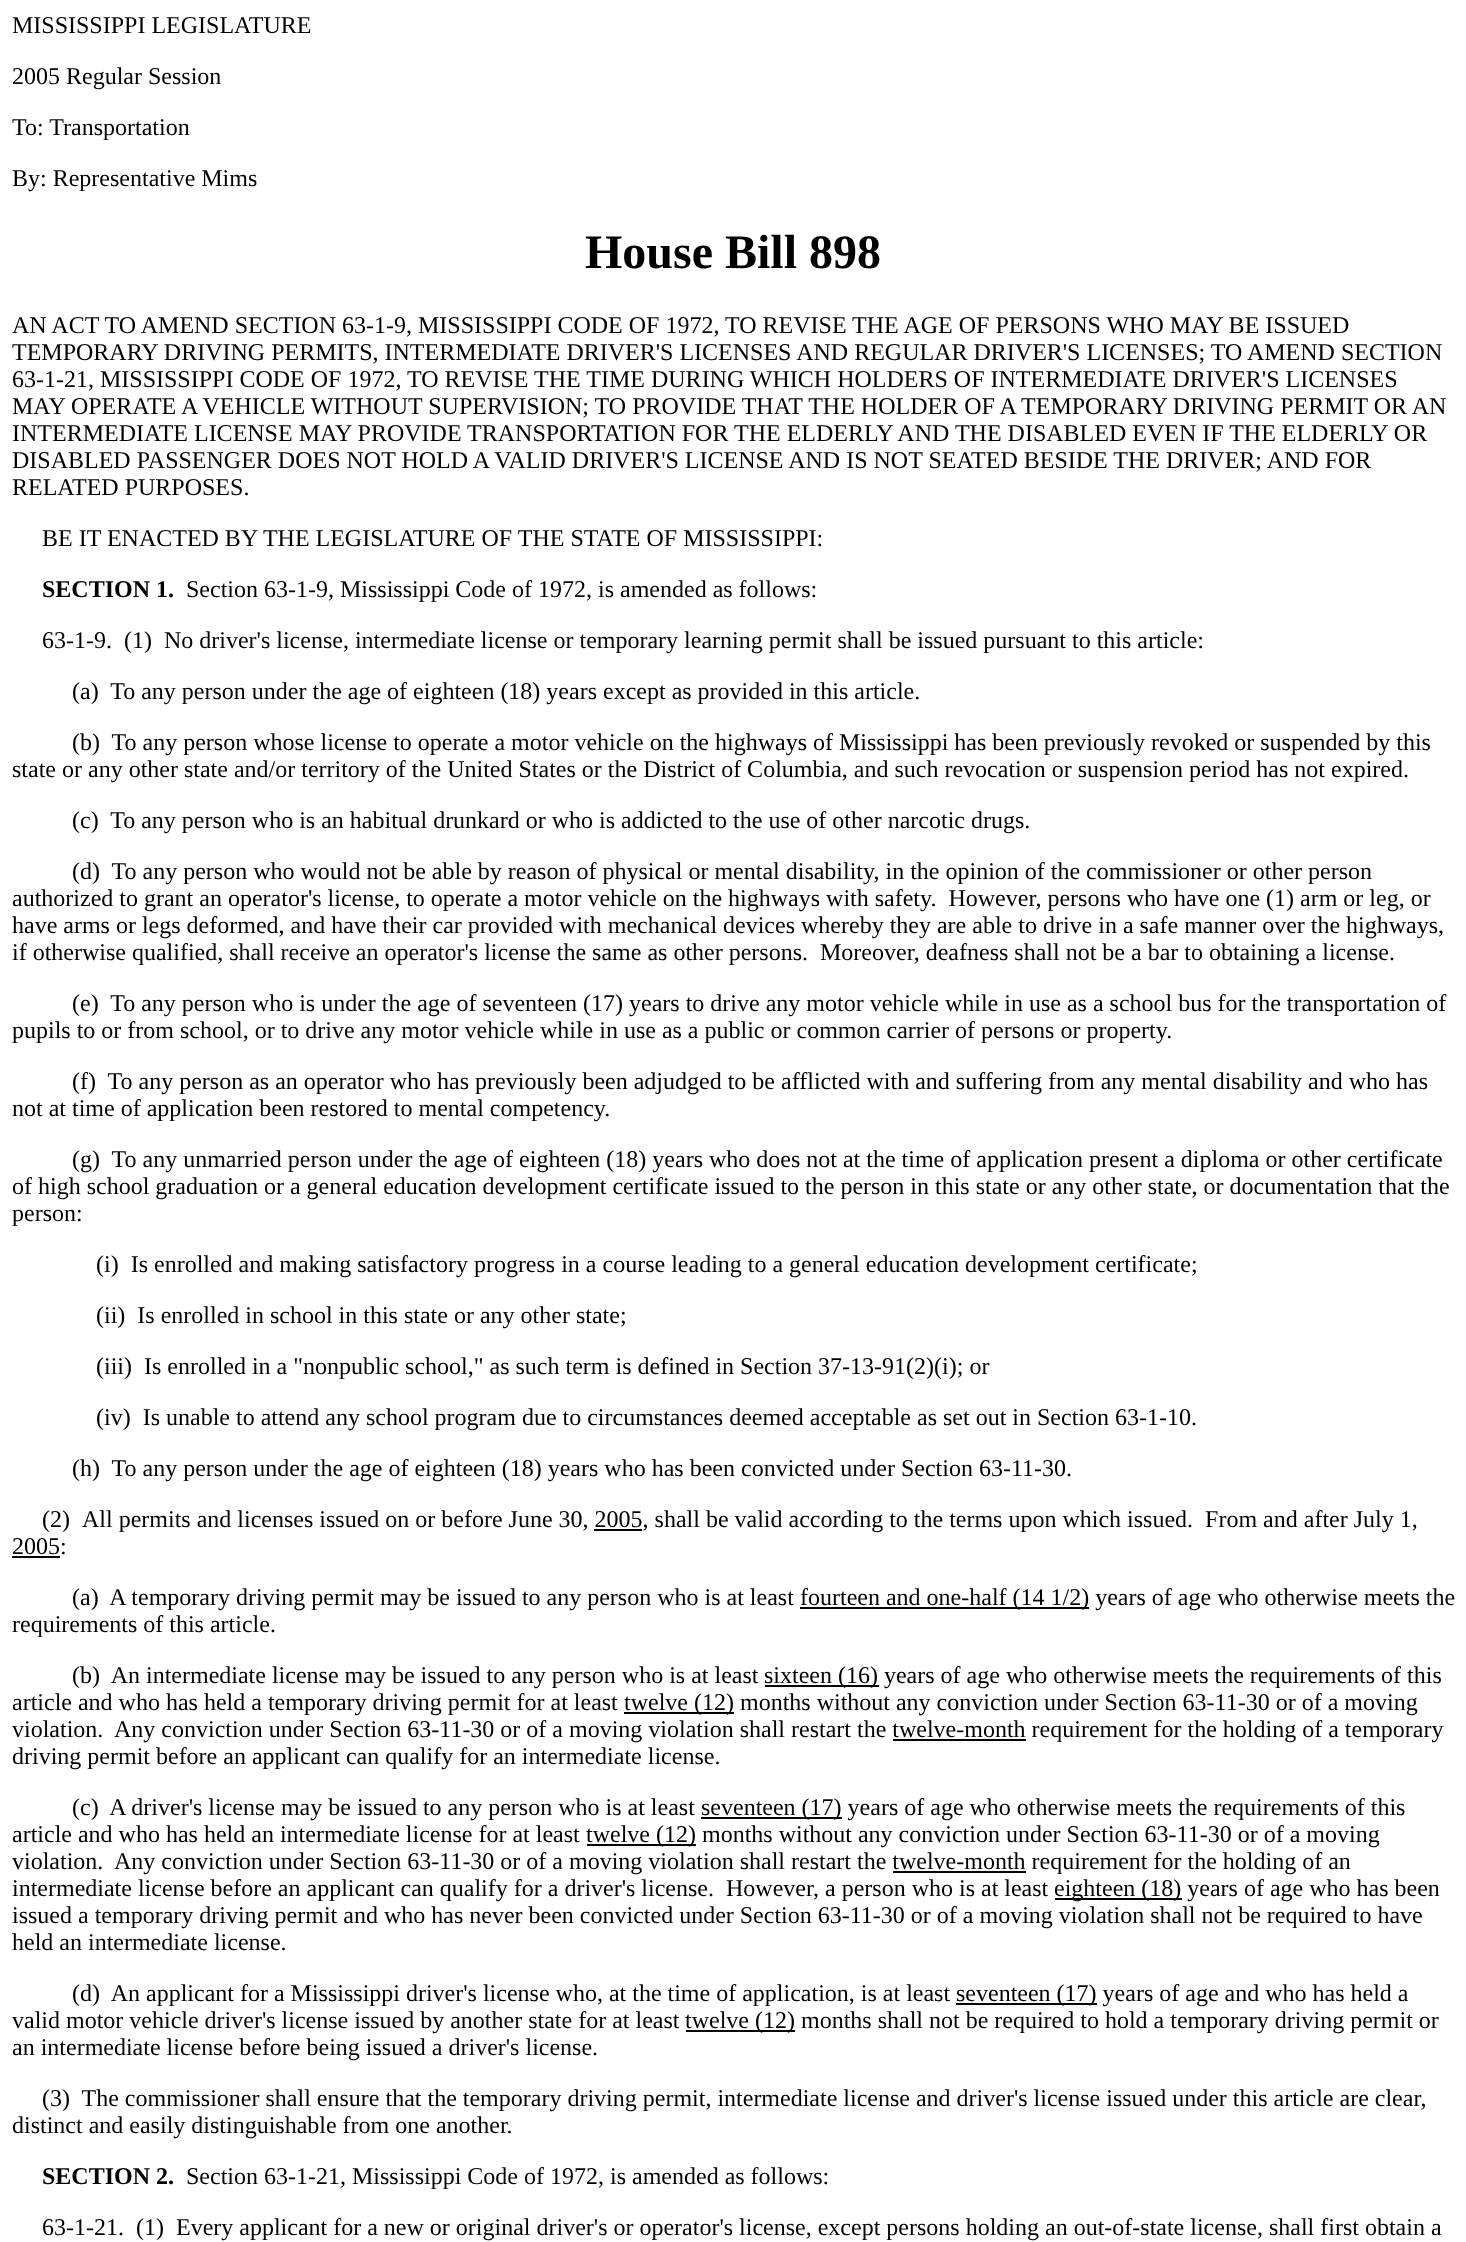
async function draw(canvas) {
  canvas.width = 1466
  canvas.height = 2242
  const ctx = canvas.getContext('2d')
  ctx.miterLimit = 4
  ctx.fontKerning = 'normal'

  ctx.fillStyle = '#fff'
  ctx.fillRect(0, 0, 1466, 2242)
  ctx.font = '24px Liberation Serif'
  ctx.fillStyle = '#000'
  ctx.fillText('MISSISSIPPI LEGISLATURE', 12, 33)
  ctx.fillText('2005 Regular Session', 12, 84)
  ctx.fillText('To: Transportation', 12, 135)
  ctx.fillText('By: Representative Mims', 12, 186)
  ctx.font = 'bold 48px Liberation Serif'
  ctx.fillText('House Bill 898', 585, 268)
  ctx.font = '24px Liberation Serif'
  ctx.fillText('AN ACT TO AMEND SECTION 63-1-9, MISSISSIPPI CODE OF 1972, TO REVISE THE AGE OF PERSONS WHO MAY BE ISSUED', 12, 333)
  ctx.fillText('TEMPORARY DRIVING PERMITS, INTERMEDIATE DRIVER\'S LICENSES AND REGULAR DRIVER\'S LICENSES; TO AMEND SECTION', 12, 360)
  ctx.fillText('63-1-21, MISSISSIPPI CODE OF 1972, TO REVISE THE TIME DURING WHICH HOLDERS OF INTERMEDIATE DRIVER\'S LICENSES', 12, 387)
  ctx.fillText('MAY OPERATE A VEHICLE WITHOUT SUPERVISION; TO PROVIDE THAT THE HOLDER OF A TEMPORARY DRIVING PERMIT OR AN', 12, 414)
  ctx.fillText('INTERMEDIATE LICENSE MAY PROVIDE TRANSPORTATION FOR THE ELDERLY AND THE DISABLED EVEN IF THE ELDERLY OR', 12, 441)
  ctx.fillText('DISABLED PASSENGER DOES NOT HOLD A VALID DRIVER\'S LICENSE AND IS NOT SEATED BESIDE THE DRIVER; AND FOR', 12, 468)
  ctx.fillText('RELATED PURPOSES.', 12, 495)
  ctx.fillText('BE IT ENACTED BY THE LEGISLATURE OF THE STATE OF MISSISSIPPI:', 42, 546)
  ctx.font = 'bold 24px Liberation Serif'
  ctx.fillText('SECTION 1.', 42, 597)
  ctx.font = '24px Liberation Serif'
  ctx.fillText('Section 63-1-9, Mississippi Code of 1972, is amended as follows:', 186, 597)
  ctx.fillText('63-1-9.  (1)  No driver\'s license, intermediate license or temporary learning permit shall be issued pursuant to this article:', 42, 648)
  ctx.fillText('(a)  To any person under the age of eighteen (18) years except as provided in this article.', 72, 699)
  ctx.fillText('(b)  To any person whose license to operate a motor vehicle on the highways of Mississippi has been previously revoked or suspended by this', 72, 750)
  ctx.fillText('state or any other state and/or territory of the United States or the District of Columbia, and such revocation or suspension period has not expired.', 12, 777)
  ctx.fillText('(c)  To any person who is an habitual drunkard or who is addicted to the use of other narcotic drugs.', 72, 828)
  ctx.fillText('(d)  To any person who would not be able by reason of physical or mental disability, in the opinion of the commissioner or other person', 72, 879)
  ctx.fillText('authorized to grant an operator\'s license, to operate a motor vehicle on the highways with safety.  However, persons who have one (1) arm or leg, or', 12, 906)
  ctx.fillText('have arms or legs deformed, and have their car provided with mechanical devices whereby they are able to drive in a safe manner over the highways,', 12, 933)
  ctx.fillText('if otherwise qualified, shall receive an operator\'s license the same as other persons.  Moreover, deafness shall not be a bar to obtaining a license.', 12, 960)
  ctx.fillText('(e)  To any person who is under the age of seventeen (17) years to drive any motor vehicle while in use as a school bus for the transportation of', 72, 1011)
  ctx.fillText('pupils to or from school, or to drive any motor vehicle while in use as a public or common carrier of persons or property.', 12, 1038)
  ctx.fillText('(f)  To any person as an operator who has previously been adjudged to be afflicted with and suffering from any mental disability and who has', 72, 1089)
  ctx.fillText('not at time of application been restored to mental competency.', 12, 1116)
  ctx.fillText('(g)  To any unmarried person under the age of eighteen (18) years who does not at the time of application present a diploma or other certificate', 72, 1167)
  ctx.fillText('of high school graduation or a general education development certificate issued to the person in this state or any other state, or documentation that the', 12, 1194)
  ctx.fillText('person:', 12, 1221)
  ctx.fillText('(i)  Is enrolled and making satisfactory progress in a course leading to a general education development certificate;', 96, 1272)
  ctx.fillText('(ii)  Is enrolled in school in this state or any other state;', 96, 1323)
  ctx.fillText('(iii)  Is enrolled in a "nonpublic school," as such term is defined in Section 37-13-91(2)(i); or', 96, 1374)
  ctx.fillText('(iv)  Is unable to attend any school program due to circumstances deemed acceptable as set out in Section 63-1-10.', 96, 1425)
  ctx.fillText('(h)  To any person under the age of eighteen (18) years who has been convicted under Section 63-11-30.', 72, 1476)
  ctx.fillText('(2)', 42, 1527)
  ctx.fillText('All permits and licenses issued on or before June 30, 2005, shall be valid according to the terms upon which issued.  From and after July 1,', 82, 1527)
  ctx.fillRect(594, 1529, 48, 2)
  ctx.fillText('2005:', 12, 1554)
  ctx.fillRect(12, 1556, 48, 2)
  ctx.fillText('(a)  A temporary driving permit may be issued to any person who is at least', 72, 1605)
  ctx.fillRect(800, 1607, 289, 2)
  ctx.fillText('fourteen and one-half (14 1/2) years of age who otherwise meets the', 800, 1605)
  ctx.fillText('requirements of this article.', 12, 1632)
  ctx.fillText('(b)  An intermediate license may be issued to any person who is at least', 72, 1683)
  ctx.fillRect(765, 1685, 114, 2)
  ctx.fillText('sixteen (16) years of age who otherwise meets the requirements of this', 764, 1683)
  ctx.fillText('article and who has held a temporary driving permit for at least', 12, 1710)
  ctx.fillRect(624, 1712, 110, 2)
  ctx.fillText('twelve (12) months without any conviction under Section 63-11-30 or of a moving', 624, 1710)
  ctx.fillText('violation.  Any conviction under Section 63-11-30 or of a moving violation shall restart the twelve-month requirement for the holding of a temporary', 12, 1737)
  ctx.fillRect(893, 1739, 133, 2)
  ctx.fillText('driving permit before an applicant can qualify for an intermediate license.', 12, 1764)
  ctx.fillText('(c)  A driver\'s license may be issued to any person who is at least', 72, 1815)
  ctx.fillRect(701, 1817, 141, 2)
  ctx.fillText('seventeen (17) years of age who otherwise meets the requirements of this', 701, 1815)
  ctx.fillText('article and who has held an intermediate license for at least', 12, 1842)
  ctx.fillRect(587, 1844, 109, 2)
  ctx.fillText('twelve (12) months without any conviction under Section 63-11-30 or of a moving', 586, 1842)
  ctx.fillText('violation.  Any conviction under Section 63-11-30 or of a moving violation shall restart the twelve-month requirement for the holding of an', 12, 1869)
  ctx.fillRect(893, 1871, 133, 2)
  ctx.fillText('intermediate license before an applicant can qualify for a driver\'s license.  However, a person who is at least', 12, 1896)
  ctx.fillRect(1055, 1898, 127, 2)
  ctx.fillText('eighteen (18) years of age who has been', 1054, 1896)
  ctx.fillText('issued a temporary driving permit and who has never been convicted under Section 63-11-30 or of a moving violation shall not be required to have', 12, 1923)
  ctx.fillText('held an intermediate license.', 12, 1950)
  ctx.fillText('(d)  An applicant for a Mississippi driver\'s license who, at the time of application, is at least', 72, 2001)
  ctx.fillRect(956, 2003, 141, 2)
  ctx.fillText('seventeen (17) years of age and who has held a', 956, 2001)
  ctx.fillText('valid motor vehicle driver\'s license issued by another state for at least', 12, 2028)
  ctx.fillRect(686, 2030, 109, 2)
  ctx.fillText('twelve (12) months shall not be required to hold a temporary driving permit or', 685, 2028)
  ctx.fillText('an intermediate license before being issued a driver\'s license.', 12, 2055)
  ctx.fillText('(3)  The commissioner shall ensure that the temporary driving permit, intermediate license and driver\'s license issued under this article are clear,', 42, 2106)
  ctx.fillText('distinct and easily distinguishable from one another.', 12, 2133)
  ctx.font = 'bold 24px Liberation Serif'
  ctx.fillText('SECTION 2.', 42, 2184)
  ctx.font = '24px Liberation Serif'
  ctx.fillText('Section 63-1-21, Mississippi Code of 1972, is amended as follows:', 186, 2184)
  ctx.fillText('63-1-21.  (1)  Every applicant for a new or original driver\'s or operator\'s license, except persons holding an out-of-state license, shall first obtain a', 42, 2235)
}

draw(document.querySelector('canvas'))
